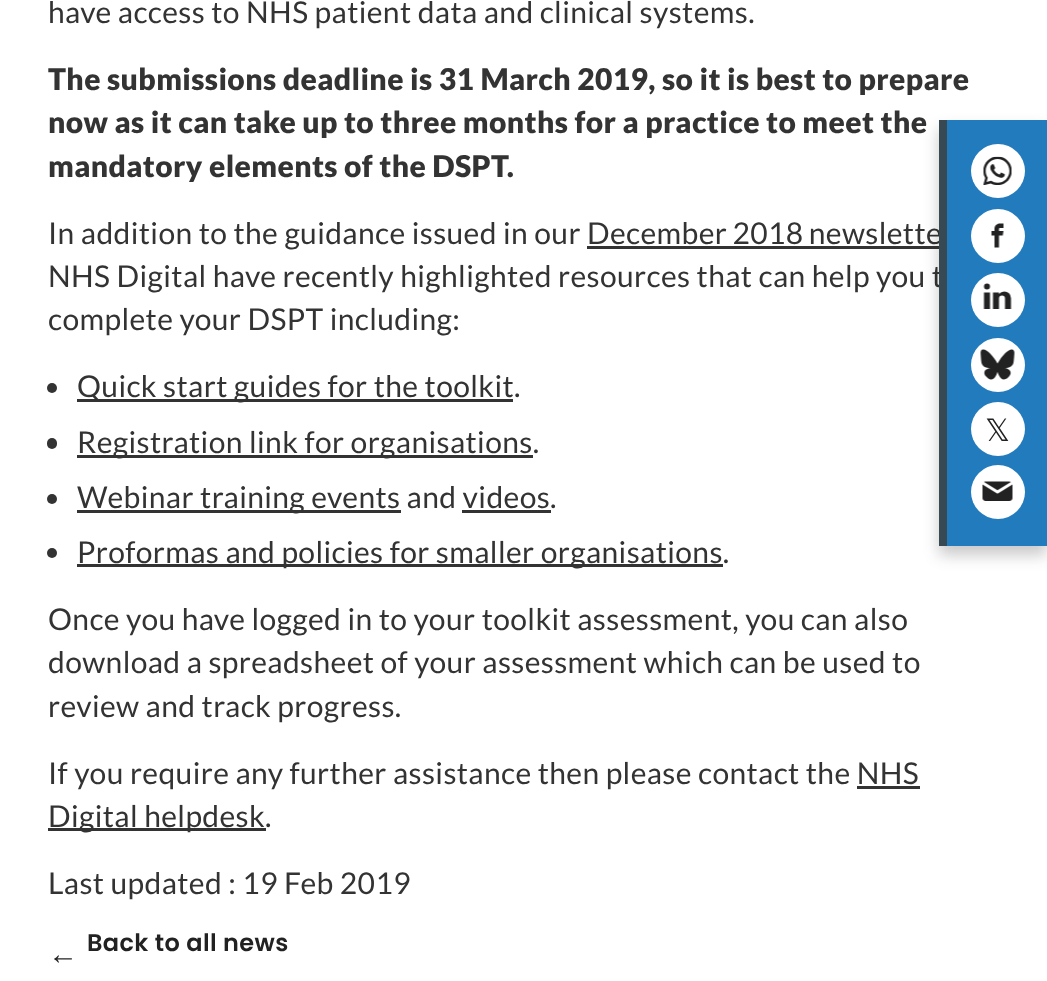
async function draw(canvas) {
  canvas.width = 1047
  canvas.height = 981
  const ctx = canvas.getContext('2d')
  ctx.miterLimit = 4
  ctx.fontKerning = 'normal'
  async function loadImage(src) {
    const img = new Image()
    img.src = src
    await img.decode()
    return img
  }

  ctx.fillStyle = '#fff'
  ctx.fillRect(0, 0, 1047, 981)
  ctx.letterSpacing = '0.38px'
  ctx.font = '30px Lato'
  ctx.fillStyle = '#333'
  ctx.fillText('have access to NHS patient data and clinical systems.', 48, 23)
  ctx.font = '900 30px Lato'
  ctx.fillText('The submissions deadline is 31 March 2019, so it is best to prepare', 48, 90)
  ctx.fillText('now as it can take up to three months for a practice to meet the', 48, 133)
  ctx.fillText('mandatory elements of the DSPT.', 48, 177)
  ctx.font = '30px Lato'
  ctx.fillText('In addition to the guidance issued in our', 48, 244)
  ctx.wordSpacing = '-1px'
  ctx.fillText('December 2018 newslette', 587, 244)
  ctx.fillRect(587, 246, 352, 3)
  ctx.wordSpacing = '0px'
  ctx.fillText('NHS Digital have recently highlighted resources that can help you t', 48, 287)
  ctx.fillText('complete your DSPT including:', 48, 330)
  ctx.beginPath()
  ctx.arc(52, 388, 5, 0, 2 * Math.PI)
  ctx.fill()
  ctx.fillRect(77, 399, 436, 3)
  ctx.fillText('Quick start guides for the toolkit.', 77, 397)
  ctx.beginPath()
  ctx.roundRect(47, 438, 10, 11, 5)
  ctx.fill()
  ctx.fillRect(77, 455, 456, 3)
  ctx.fillText('Registration link for organisations.', 77, 453)
  ctx.beginPath()
  ctx.arc(52, 499, 5, 0, 2 * Math.PI)
  ctx.fill()
  ctx.fillRect(77, 510, 324, 3)
  ctx.fillText('Webinar training events and videos.', 77, 508)
  ctx.fillRect(462, 510, 89, 3)
  ctx.beginPath()
  ctx.arc(52, 553, 5, 0, 2 * Math.PI)
  ctx.fill()
  ctx.fillRect(77, 564, 646, 3)
  ctx.fillText('Proformas and policies for smaller organisations.', 77, 563)
  ctx.fillText('Once you have logged in to your toolkit assessment, you can also', 48, 630)
  ctx.fillText('download a spreadsheet of your assessment which can be used to', 48, 673)
  ctx.fillText('review and track progress.', 48, 717)
  ctx.fillText('If you require any further assistance then please contact the NHS', 48, 784)
  ctx.fillRect(48, 828, 218, 3)
  ctx.fillText('Digital helpdesk.', 48, 827)
  ctx.fillRect(857, 786, 63, 3)
  ctx.fillText('Last updated : 19 Feb 2019', 48, 894)
  ctx.font = '600 24px Poppins'
  ctx.fillStyle = '#222'
  ctx.fillText('Back to all news', 87, 951)
  ctx.font = 'bold 30px Liberation Sans'
  ctx.save()
  ctx.translate(78, 954)
  ctx.rotate(180 * Math.PI / 180)
  ctx.fillText('→', 0, 0)
  ctx.restore()
  ctx.fillStyle = '#22222240'
  ctx.filter = 'blur(7.5px)'
  ctx.beginPath()
  ctx.rect(939, 129, 108, 426)
  ctx.fill()
  ctx.filter = 'none'
  ctx.fillStyle = '#217bbd'
  ctx.fillRect(947, 120, 100, 426)
  ctx.fillStyle = '#374a53'
  ctx.fillRect(939, 120, 8, 426)
  ctx.fillStyle = '#fff'
  ctx.beginPath()
  ctx.arc(998, 171, 27, 0, 2 * Math.PI)
  ctx.fill()
  ctx.drawImage(await loadImage('image0.png'), 983, 156, 29, 29)
  ctx.beginPath()
  ctx.arc(998, 236, 27, 0, 2 * Math.PI)
  ctx.fill()
  ctx.drawImage(await loadImage('image1.png'), 991, 223, 13, 25)
  ctx.beginPath()
  ctx.arc(998, 300, 27, 0, 2 * Math.PI)
  ctx.fill()
  ctx.drawImage(await loadImage('image2.png'), 983, 283, 29, 26)
  ctx.beginPath()
  ctx.arc(998, 365, 27, 0, 2 * Math.PI)
  ctx.fill()
  ctx.drawImage(await loadImage('image3.png'), 980, 349, 35, 31)
  ctx.beginPath()
  ctx.arc(998, 429, 27, 0, 2 * Math.PI)
  ctx.fill()
  ctx.font = '31px DejaVu Sans'
  ctx.fillStyle = '#222'
  ctx.fillText('𝕏', 985, 441)
  ctx.fillStyle = '#fff'
  ctx.beginPath()
  ctx.arc(998, 492, 27, 0, 2 * Math.PI)
  ctx.fill()
  ctx.drawImage(await loadImage('image4.png'), 982, 481, 31, 20)
}

draw(document.querySelector('canvas'))
